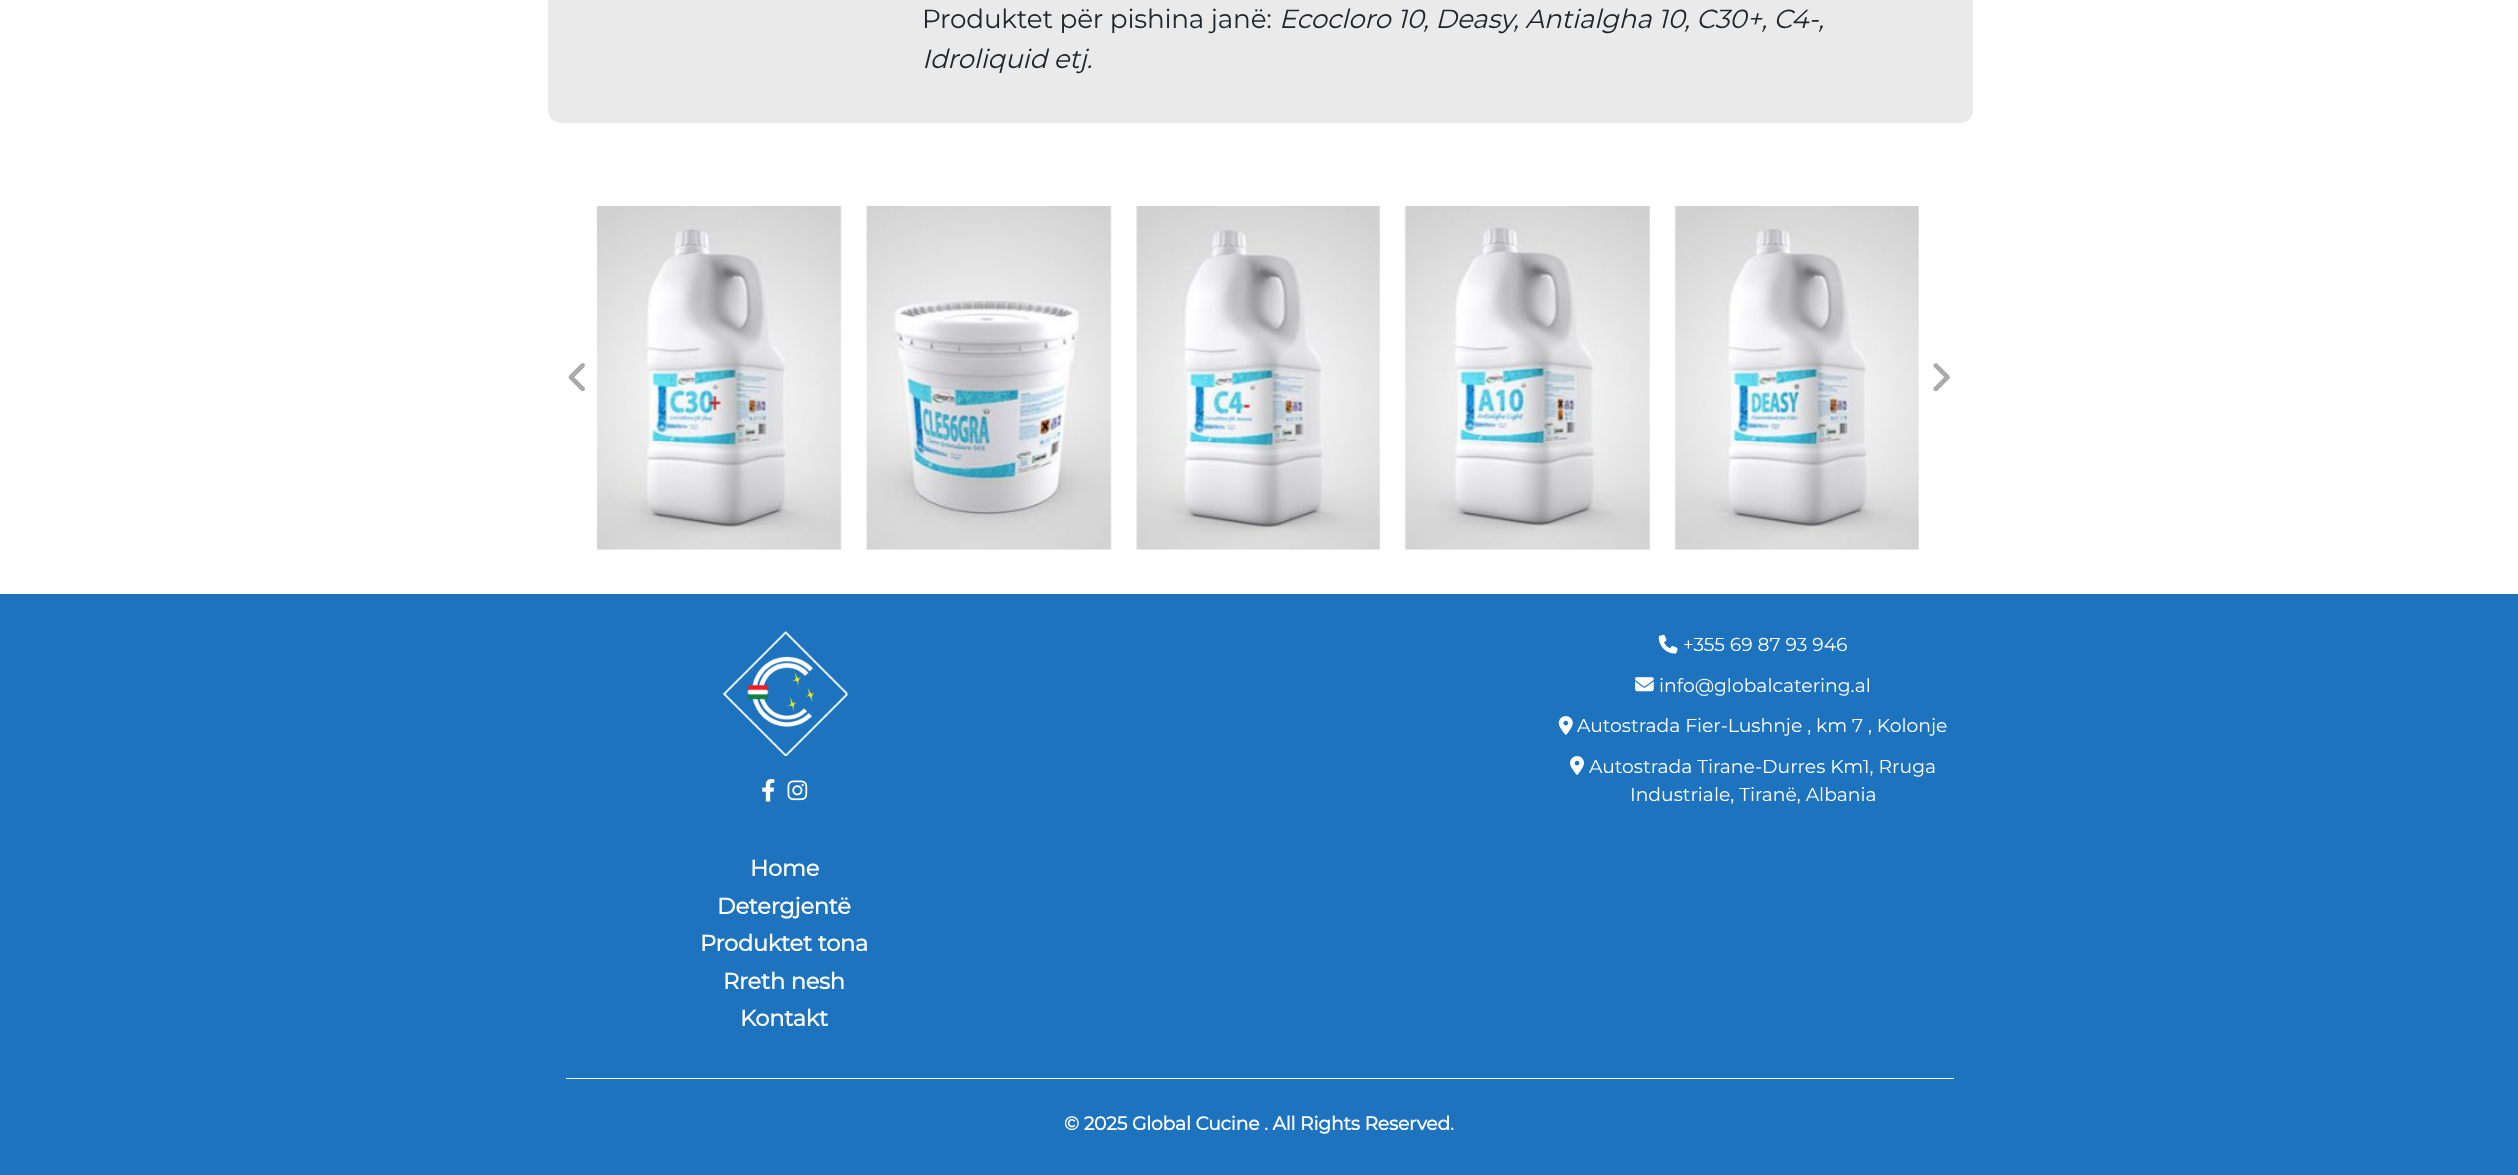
async function draw(canvas) {
  canvas.width = 2518
  canvas.height = 1175
  const ctx = canvas.getContext('2d')
  ctx.miterLimit = 4
  ctx.fontKerning = 'normal'
  async function loadImage(src) {
    const img = new Image()
    img.src = src
    await img.decode()
    return img
  }

  ctx.fillStyle = '#fff'
  ctx.fillRect(0, 0, 2518, 1175)
  ctx.fillStyle = '#eaeaea'
  ctx.beginPath()
  ctx.roundRect(548, -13, 1425, 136, 13)
  ctx.fill()
  ctx.letterSpacing = '-0.2px'
  ctx.font = '100 26.25px Montserrat'
  ctx.fillStyle = '#212529'
  ctx.fillText('Produktet për pishina janë:', 922, 28)
  ctx.font = 'italic 100 26.25px Montserrat'
  ctx.fillText('Ecocloro 10, Deasy, Antialgha 10, C30+, C4-,', 1279, 28)
  ctx.fillText('Idroliquid etj.', 922, 68)
  ctx.drawImage(await loadImage('image0.png'), 568, 363, 17, 29)
  ctx.drawImage(await loadImage('image1.png'), 597, 206, 245, 344)
  ctx.drawImage(await loadImage('image2.png'), 866, 206, 246, 344)
  ctx.drawImage(await loadImage('image3.png'), 1136, 206, 244, 344)
  ctx.drawImage(await loadImage('image4.png'), 1404, 206, 246, 344)
  ctx.drawImage(await loadImage('image5.png'), 1674, 206, 245, 344)
  ctx.drawImage(await loadImage('image6.png'), 1933, 363, 17, 29)
  ctx.fillStyle = '#1e73be'
  ctx.fillRect(0, 594, 2518, 581)
  ctx.drawImage(await loadImage('image7.png'), 1658, 634, 20, 20)
  ctx.letterSpacing = '0px'
  ctx.font = '100 18.75px Montserrat'
  ctx.fillStyle = '#fff'
  ctx.fillText('+355 69 87 93 946', 1683, 651)
  ctx.drawImage(await loadImage('image8.png'), 1635, 677, 19, 15)
  ctx.fillText('info@globalcatering.al', 1659, 692)
  ctx.drawImage(await loadImage('image9.png'), 1558, 716, 15, 19)
  ctx.fillText('Autostrada Fier-Lushnje , km 7 , Kolonje', 1577, 732)
  ctx.drawImage(await loadImage('image10.png'), 1570, 756, 14, 19)
  ctx.fillText('Autostrada Tirane-Durres Km1, Rruga', 1589, 773)
  ctx.fillText('Industriale, Tiranë, Albania', 1630, 801)
  ctx.drawImage(await loadImage('image11.png'), 722, 631, 126, 125)
  ctx.drawImage(await loadImage('image12.png'), 762, 779, 13, 23)
  ctx.drawImage(await loadImage('image13.png'), 787, 780, 21, 21)
  ctx.letterSpacing = '-0.2px'
  ctx.font = 'bold 22.5px Montserrat'
  ctx.fillText('Home', 750, 876)
  ctx.fillText('Detergjentë', 717, 914)
  ctx.fillText('Produktet tona', 700, 951)
  ctx.fillText('Rreth nesh', 723, 989)
  ctx.fillText('Kontakt', 740, 1026)
  ctx.fillRect(566, 1078, 1388, 1)
  ctx.font = 'bold 18.75px Montserrat'
  ctx.fillText('© 2025 Global Cucine . All Rights Reserved.', 1064, 1130)
}

draw(document.querySelector('canvas'))
